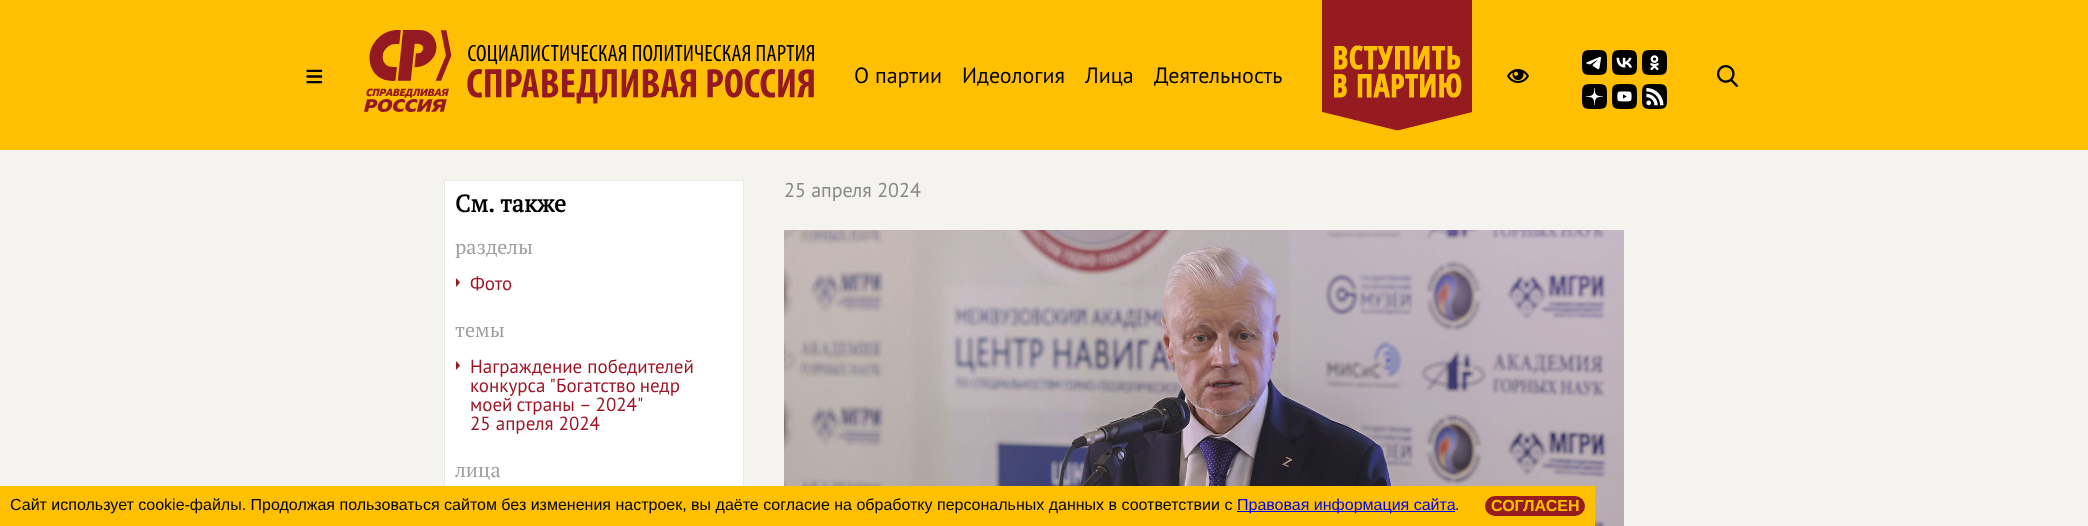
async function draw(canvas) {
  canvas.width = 2088
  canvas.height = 526
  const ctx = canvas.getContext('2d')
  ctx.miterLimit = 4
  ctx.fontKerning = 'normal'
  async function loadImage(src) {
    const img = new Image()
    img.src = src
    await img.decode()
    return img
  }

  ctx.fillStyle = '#f4f3ef'
  ctx.fillRect(0, 0, 2088, 526)
  ctx.fillStyle = '#ffc003'
  ctx.fillRect(0, 0, 2088, 150)
  ctx.font = '32px Liberation Sans'
  ctx.fillStyle = '#000'
  ctx.fillText('≡', 305, 87)
  ctx.drawImage(await loadImage('image0.png'), 364, 30, 450, 82)
  ctx.font = '22px PT Sans'
  ctx.fillText('О партии', 854, 83)
  ctx.fillText('Идеология', 962, 83)
  ctx.fillText('Лица', 1085, 83)
  ctx.fillText('Деятельность', 1154, 83)
  ctx.drawImage(await loadImage('image1.png'), 1322, 0, 150, 131)
  ctx.drawImage(await loadImage('image2.png'), 1507, 69, 22, 14)
  ctx.drawImage(await loadImage('image3.png'), 1582, 50, 25, 25)
  ctx.drawImage(await loadImage('image4.png'), 1612, 50, 25, 25)
  ctx.drawImage(await loadImage('image5.png'), 1642, 50, 25, 25)
  ctx.drawImage(await loadImage('image6.png'), 1582, 84, 25, 25)
  ctx.drawImage(await loadImage('image7.png'), 1612, 84, 25, 25)
  ctx.drawImage(await loadImage('image8.png'), 1642, 84, 25, 25)
  ctx.drawImage(await loadImage('image9.png'), 1717, 65, 21, 22)
  ctx.font = '20px PT Sans'
  ctx.fillStyle = '#898989'
  ctx.fillText('25 апреля 2024', 784, 197)
  ctx.drawImage(await loadImage('image10.png'), 784, 230, 840, 296)
  ctx.fillStyle = '#fff'
  ctx.fillRect(445, 181, 298, 305)
  ctx.strokeStyle = '#e8e8e8'
  ctx.strokeRect(444.5, 180.5, 299, 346)
  ctx.font = 'bold 24px PT Serif'
  ctx.fillStyle = '#000'
  ctx.fillText('См. также', 455, 212)
  ctx.font = '20px PT Serif'
  ctx.fillStyle = '#a0a0a0'
  ctx.fillText('разделы', 455, 254)
  ctx.drawImage(await loadImage('image11.png'), 456, 278, 4, 9)
  ctx.font = '19px PT Sans'
  ctx.fillStyle = '#9e1527'
  ctx.fillText('Фото', 470, 290)
  ctx.font = '20px PT Serif'
  ctx.fillStyle = '#a0a0a0'
  ctx.fillText('темы', 455, 337)
  ctx.drawImage(await loadImage('image11.png'), 456, 361, 4, 9)
  ctx.font = '19px PT Sans'
  ctx.fillStyle = '#9e1527'
  ctx.fillText('Награждение победителей', 470, 373)
  ctx.wordSpacing = '-1px'
  ctx.fillText('конкурса "Богатство недр', 470, 392)
  ctx.fillText('моей страны – 2024"', 470, 411)
  ctx.wordSpacing = '0px'
  ctx.fillText('25 апреля 2024', 470, 430)
  ctx.font = '20px PT Serif'
  ctx.fillStyle = '#a0a0a0'
  ctx.fillText('лица', 455, 477)
  ctx.fillStyle = '#ffc002'
  ctx.fillRect(0, 486, 1595, 40)
  ctx.font = '16px Liberation Sans'
  ctx.fillStyle = '#000'
  ctx.fillText('Сайт использует cookie-файлы. Продолжая пользоваться сайтом без изменения настроек, вы даёте согласие на обработку персональных данных в соответствии с', 10, 510)
  ctx.fillStyle = '#00e'
  ctx.fillRect(1237, 511, 218, 1)
  ctx.fillText('Правовая информация сайта', 1237, 510)
  ctx.fillStyle = '#000'
  ctx.fillText('.', 1455, 510)
  ctx.fillStyle = '#961c20'
  ctx.beginPath()
  ctx.roundRect(1485, 496, 100, 20, 10)
  ctx.fill()
  ctx.font = 'bold 16px Liberation Sans'
  ctx.fillStyle = '#ffc002'
  ctx.fillText('СОГЛАСЕН', 1491, 511)
}

draw(document.querySelector('canvas'))
